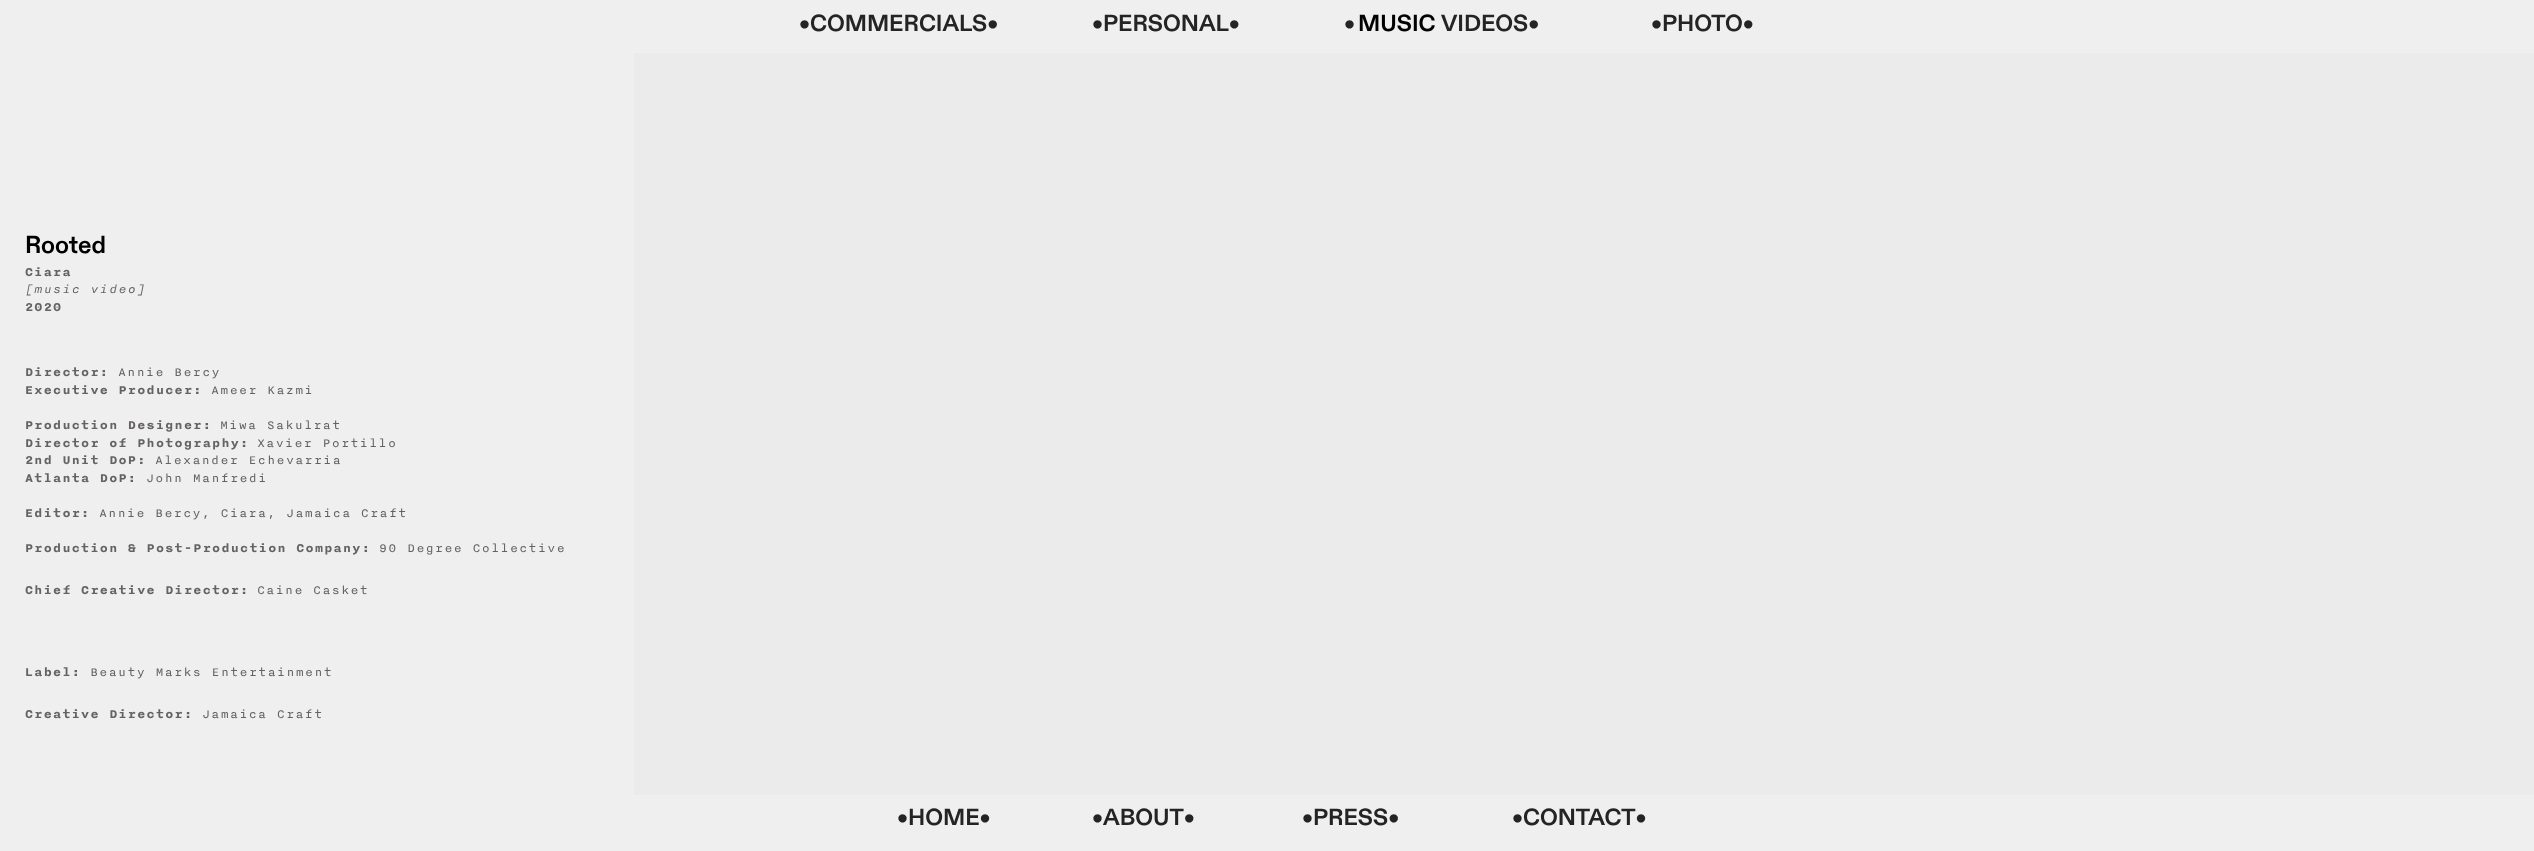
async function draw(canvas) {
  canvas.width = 2534
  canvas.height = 851
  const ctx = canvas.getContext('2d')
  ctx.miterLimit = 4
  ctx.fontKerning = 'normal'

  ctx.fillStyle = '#efefef'
  ctx.fillRect(0, 0, 2534, 851)
  ctx.font = 'bold 23.25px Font'
  ctx.fillStyle = '#242424'
  ctx.fillText('•COMMERCIALS•', 799, 31)
  ctx.fillText('•PERSONAL•', 1092, 31)
  ctx.fillText('•', 1344, 31)
  ctx.fillStyle = '#000'
  ctx.fillText('MUSIC', 1358, 31)
  ctx.fillStyle = '#242424'
  ctx.fillText('VIDEOS•', 1441, 31)
  ctx.fillText('•PHOTO•', 1651, 31)
  ctx.font = 'bold 24.5px Font'
  ctx.fillStyle = '#000'
  ctx.fillText('Rooted', 25, 253)
  ctx.letterSpacing = '1.25px'
  ctx.font = 'bold 13.5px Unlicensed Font'
  ctx.fillStyle = '#666262'
  ctx.fillText('Ciara', 25, 276)
  ctx.font = 'italic 13.5px Unlicensed Font'
  ctx.fillText('[music video]', 25, 293)
  ctx.font = 'bold 13.5px Unlicensed Font'
  ctx.fillText('2020', 25, 311)
  ctx.fillText('Director:', 25, 376)
  ctx.font = '13.5px Unlicensed Font'
  ctx.fillText('Annie Bercy', 118, 376)
  ctx.font = 'bold 13.5px Unlicensed Font'
  ctx.fillText('Executive Producer:', 25, 394)
  ctx.font = '13.5px Unlicensed Font'
  ctx.fillText('Ameer Kazmi', 211, 394)
  ctx.font = 'bold 13.5px Unlicensed Font'
  ctx.fillText('Production Designer:', 25, 429)
  ctx.font = '13.5px Unlicensed Font'
  ctx.fillText('Miwa Sakulrat', 220, 429)
  ctx.font = 'bold 13.5px Unlicensed Font'
  ctx.fillText('Director of Photography:', 25, 447)
  ctx.font = '13.5px Unlicensed Font'
  ctx.fillText('Xavier Portillo', 257, 447)
  ctx.font = 'bold 13.5px Unlicensed Font'
  ctx.fillText('2nd Unit DoP:', 25, 464)
  ctx.font = '13.5px Unlicensed Font'
  ctx.fillText('Alexander Echevarria', 155, 464)
  ctx.font = 'bold 13.5px Unlicensed Font'
  ctx.fillText('Atlanta DoP:', 25, 482)
  ctx.font = '13.5px Unlicensed Font'
  ctx.fillText('John Manfredi', 146, 482)
  ctx.font = 'bold 13.5px Unlicensed Font'
  ctx.fillText('Editor:', 25, 517)
  ctx.font = '13.5px Unlicensed Font'
  ctx.fillText('Annie Bercy, Ciara, Jamaica Craft', 99, 517)
  ctx.font = 'bold 13.5px Unlicensed Font'
  ctx.fillText('Production & Post-Production Company:', 25, 552)
  ctx.font = '13.5px Unlicensed Font'
  ctx.fillText('90 Degree Collective', 379, 552)
  ctx.font = 'bold 13.5px Unlicensed Font'
  ctx.fillText('Chief Creative Director:', 25, 594)
  ctx.font = '13.5px Unlicensed Font'
  ctx.fillText('Caine Casket', 257, 594)
  ctx.font = 'bold 13.5px Unlicensed Font'
  ctx.fillText('Label:', 25, 676)
  ctx.font = '13.5px Unlicensed Font'
  ctx.fillText('Beauty Marks Entertainment', 90, 676)
  ctx.font = 'bold 13.5px Unlicensed Font'
  ctx.fillText('Creative Director:', 25, 718)
  ctx.font = '13.5px Unlicensed Font'
  ctx.fillText('Jamaica Craft', 202, 718)
  ctx.fillStyle = '#ebebeb'
  ctx.fillRect(634, 53, 1900, 742)
  ctx.letterSpacing = '0px'
  ctx.font = 'bold 23.25px Font'
  ctx.fillStyle = '#242424'
  ctx.fillText('•HOME•', 897, 825)
  ctx.fillText('•ABOUT•', 1092, 825)
  ctx.fillText('•PRESS•', 1302, 825)
  ctx.fillText('•CONTACT•', 1512, 825)
}

draw(document.querySelector('canvas'))
